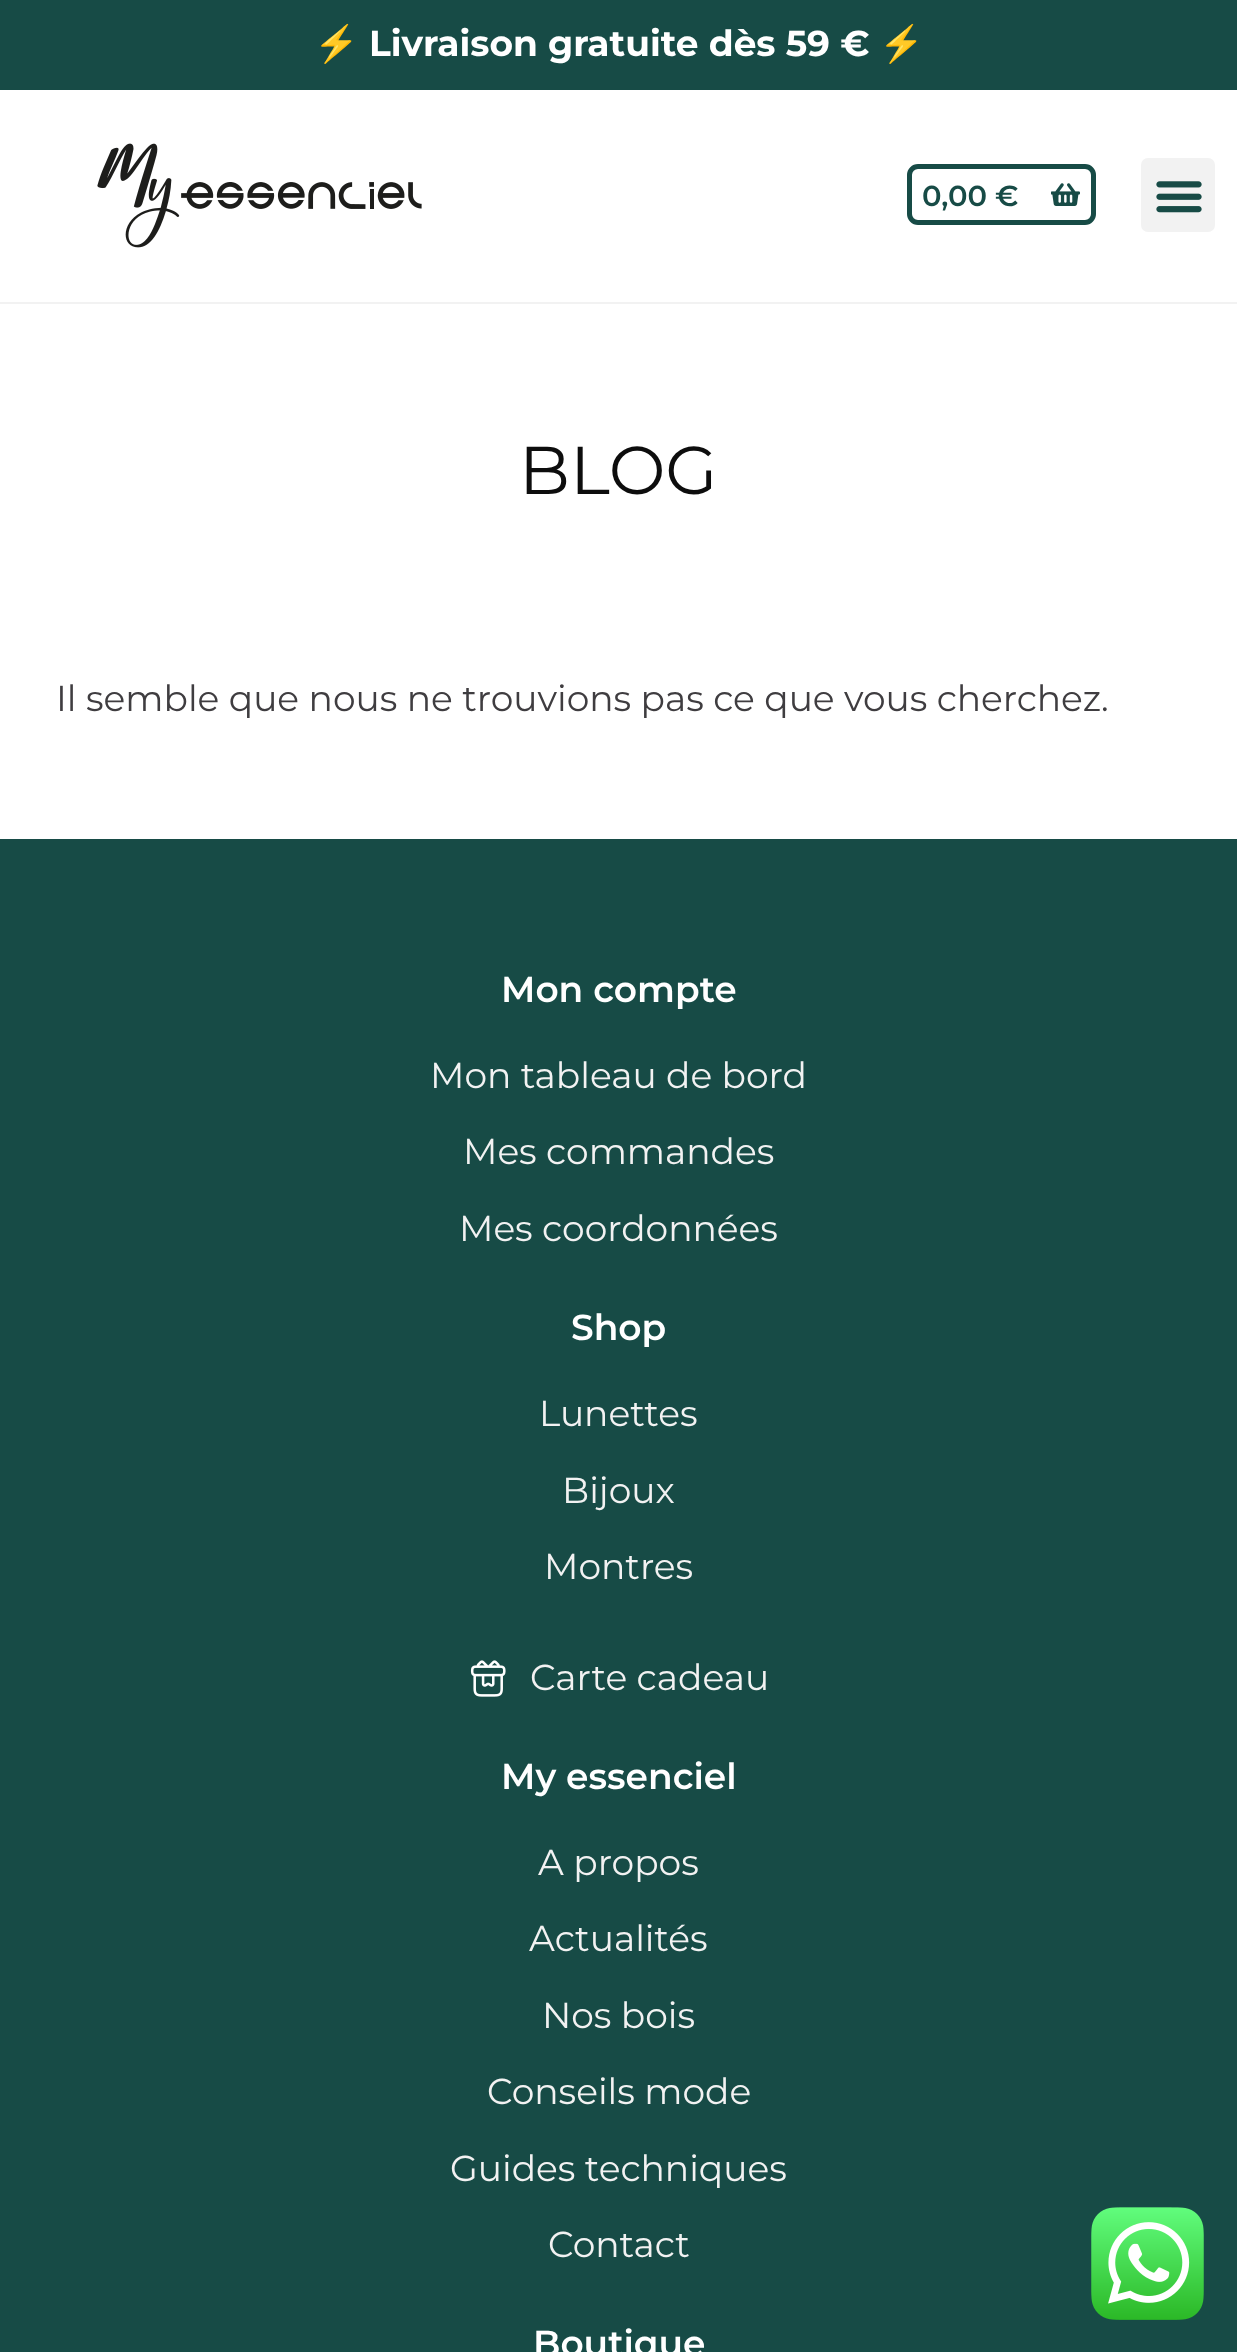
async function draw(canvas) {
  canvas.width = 1237
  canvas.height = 2352
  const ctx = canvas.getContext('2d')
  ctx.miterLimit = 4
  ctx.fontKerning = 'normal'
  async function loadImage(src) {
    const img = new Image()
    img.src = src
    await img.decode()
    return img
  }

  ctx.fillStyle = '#fff'
  ctx.fillRect(0, 0, 1237, 2352)
  ctx.fillStyle = '#174b46'
  ctx.fillRect(0, 0, 1237, 90)
  ctx.font = 'bold 36px Noto Color Emoji'
  ctx.fillStyle = '#fff'
  ctx.fillText('⚡️', 314, 56)
  ctx.font = 'bold 36px Montserrat'
  ctx.fillText('Livraison gratuite dès 59 €', 369, 56)
  ctx.font = 'bold 36px Noto Color Emoji'
  ctx.fillText('⚡️', 879, 56)
  ctx.fillStyle = '#f2f2f2'
  ctx.fillRect(0, 302, 1237, 2)
  ctx.drawImage(await loadImage('image0.png'), 97, 143, 325, 105)
  ctx.beginPath()
  ctx.roundRect(909.5, 166.5, 184, 56, 8.5)
  ctx.strokeStyle = '#174b46'
  ctx.lineWidth = 5
  ctx.stroke()
  ctx.font = '600 29px Montserrat'
  ctx.fillStyle = '#174b46'
  ctx.fillText('0,00 €', 922, 206)
  ctx.drawImage(await loadImage('image1.png'), 1051, 183, 29, 23)
  ctx.fillStyle = '#f2f2f2'
  ctx.beginPath()
  ctx.roundRect(1141, 158, 74, 74, 7)
  ctx.fill()
  ctx.drawImage(await loadImage('image2.png'), 1156, 181, 46, 32)
  ctx.font = '67.5px Montserrat'
  ctx.fillStyle = '#0d0d0d'
  ctx.fillText('BLOG', 519, 494)
  ctx.font = '36px Montserrat'
  ctx.fillStyle = '#3f3d40'
  ctx.fillText('Il semble que nous ne trouvions pas ce que vous cherchez.', 56, 711)
  ctx.fillStyle = '#174b46'
  ctx.fillRect(0, 839, 1237, 1513)
  ctx.font = '600 36px Montserrat'
  ctx.fillStyle = '#fff'
  ctx.fillText('Mon compte', 501, 1002)
  ctx.font = '36px Montserrat'
  ctx.fillStyle = '#f2f2f2'
  ctx.fillText('Mon tableau de bord', 430, 1088)
  ctx.fillText('Mes commandes', 463, 1164)
  ctx.fillText('Mes coordonnées', 459, 1241)
  ctx.font = '600 36px Montserrat'
  ctx.fillStyle = '#fff'
  ctx.fillText('Shop', 571, 1340)
  ctx.font = '36px Montserrat'
  ctx.fillStyle = '#f2f2f2'
  ctx.fillText('Lunettes', 539, 1426)
  ctx.fillText('Bijoux', 562, 1503)
  ctx.fillText('Montres', 544, 1579)
  ctx.drawImage(await loadImage('image3.png'), 470, 1660, 36, 37)
  ctx.fillText('Carte cadeau', 530, 1690)
  ctx.font = '600 36px Montserrat'
  ctx.fillStyle = '#fff'
  ctx.fillText('My essenciel', 501, 1789)
  ctx.font = '36px Montserrat'
  ctx.fillStyle = '#f2f2f2'
  ctx.fillText('A propos', 538, 1875)
  ctx.fillText('Actualités', 529, 1951)
  ctx.fillText('Nos bois', 542, 2028)
  ctx.fillText('Conseils mode', 487, 2104)
  ctx.fillText('Guides techniques', 450, 2181)
  ctx.fillText('Contact', 548, 2257)
  ctx.font = '600 36px Montserrat'
  ctx.fillStyle = '#fff'
  ctx.fillText('Boutique', 533, 2356)
  ctx.drawImage(await loadImage('image4.png'), 1091, 2207, 113, 113)
}

draw(document.querySelector('canvas'))
